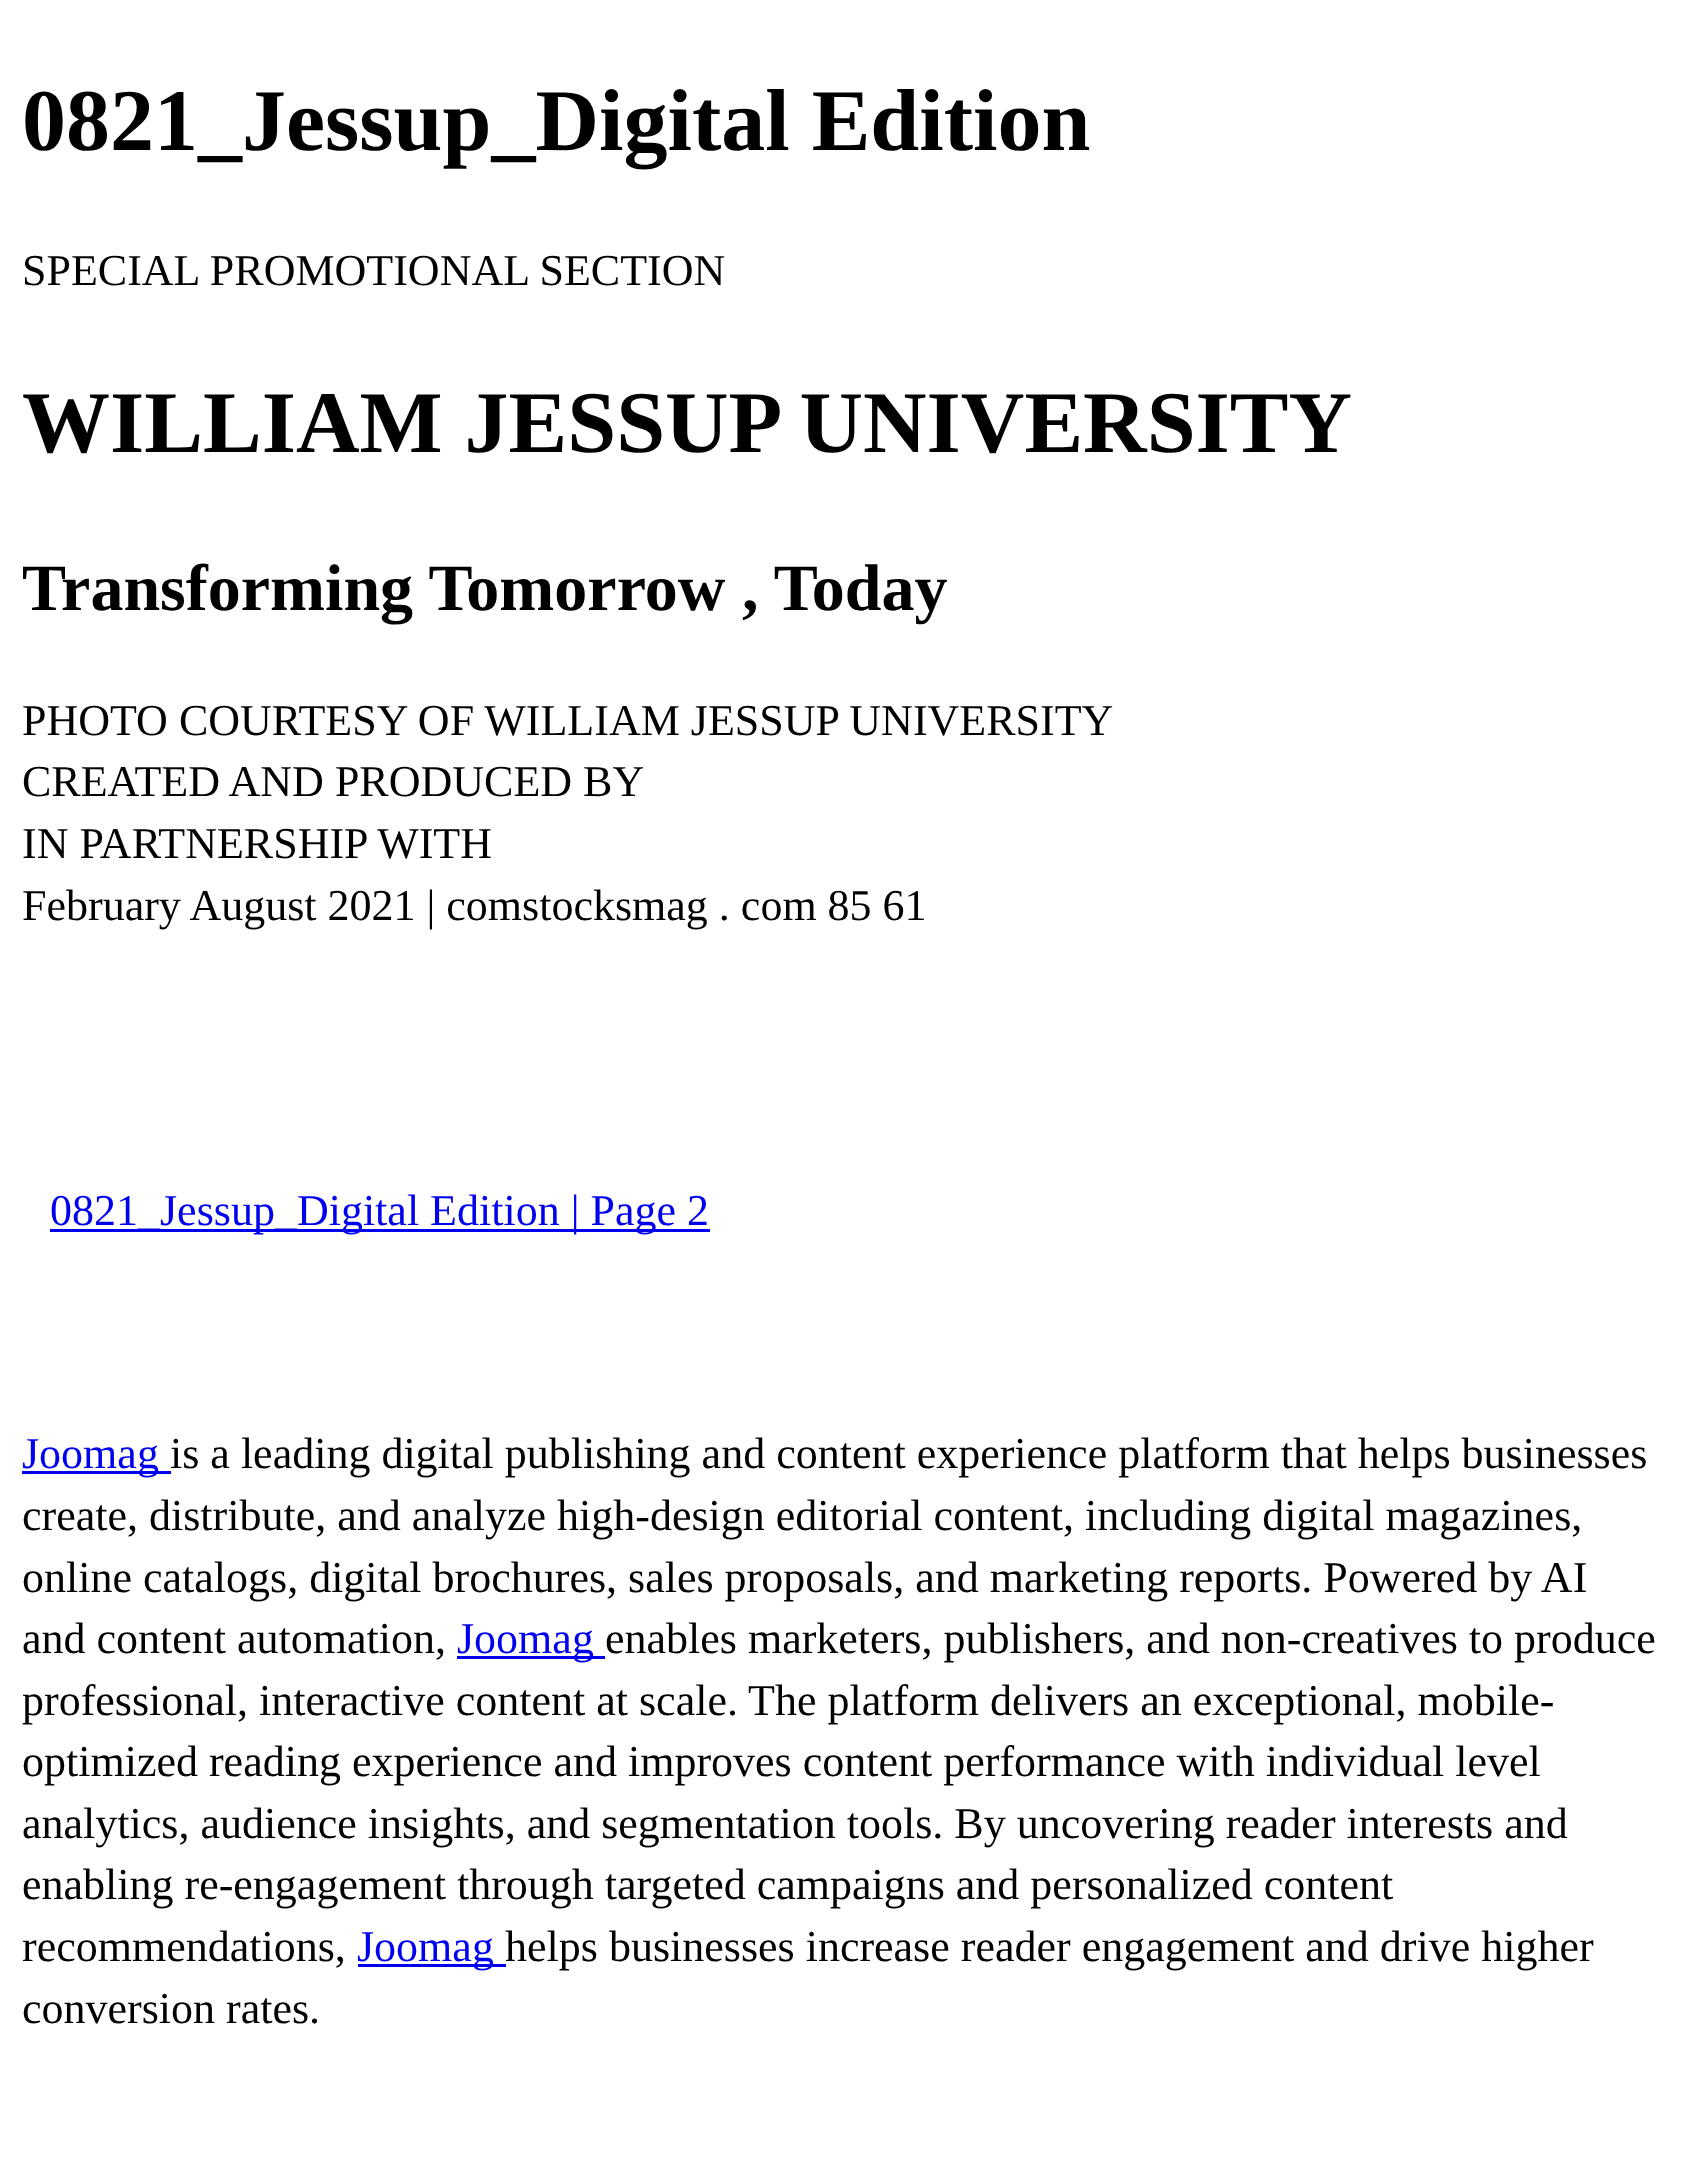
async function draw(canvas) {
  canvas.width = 1681
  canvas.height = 2159
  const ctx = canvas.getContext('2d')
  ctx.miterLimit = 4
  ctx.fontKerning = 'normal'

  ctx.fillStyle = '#fff'
  ctx.fillRect(0, 0, 1681, 2159)
  ctx.font = 'bold 88px Liberation Serif'
  ctx.fillStyle = '#000'
  ctx.fillText('0821_Jessup_Digital Edition', 22, 150)
  ctx.font = '44px Liberation Serif'
  ctx.fillText('SPECIAL PROMOTIONAL SECTION', 22, 285)
  ctx.font = 'bold 88px Liberation Serif'
  ctx.fillText('WILLIAM JESSUP UNIVERSITY', 22, 452)
  ctx.font = 'bold 66px Liberation Serif'
  ctx.fillText('Transforming Tomorrow , Today', 22, 610)
  ctx.font = '44px Liberation Serif'
  ctx.fillText('PHOTO COURTESY OF WILLIAM JESSUP UNIVERSITY', 22, 735)
  ctx.fillText('CREATED AND PRODUCED BY', 22, 796)
  ctx.fillText('IN PARTNERSHIP WITH', 22, 858)
  ctx.fillText('February August 2021 | comstocksmag . com 85 61', 22, 920)
  ctx.fillStyle = '#00e'
  ctx.fillRect(50, 1229, 660, 3)
  ctx.fillText('0821_Jessup_Digital Edition | Page 2', 50, 1225)
  ctx.fillRect(22, 1471, 149, 3)
  ctx.fillText('Joomag', 22, 1468)
  ctx.fillStyle = '#000'
  ctx.fillText('is a leading digital publishing and content experience platform that helps businesses', 170, 1468)
  ctx.fillText('create, distribute, and analyze high-design editorial content, including digital magazines,', 22, 1530)
  ctx.fillText('online catalogs, digital brochures, sales proposals, and marketing reports. Powered by AI', 22, 1592)
  ctx.fillText('and content automation,', 22, 1653)
  ctx.fillStyle = '#00e'
  ctx.fillRect(457, 1656, 148, 3)
  ctx.fillText('Joomag', 457, 1653)
  ctx.fillStyle = '#000'
  ctx.fillText('enables marketers, publishers, and non-creatives to produce', 605, 1653)
  ctx.fillText('professional, interactive content at scale.', 22, 1715)
  ctx.fillText('The platform delivers an exceptional, mobile-', 748, 1715)
  ctx.fillText('optimized reading experience and improves content performance with individual level', 22, 1776)
  ctx.fillText('analytics, audience insights, and segmentation tools. By uncovering reader interests and', 22, 1838)
  ctx.fillText('enabling re-engagement through targeted campaigns and personalized content', 22, 1899)
  ctx.fillText('recommendations,', 22, 1961)
  ctx.fillStyle = '#00e'
  ctx.fillRect(358, 1964, 148, 3)
  ctx.fillText('Joomag', 357, 1961)
  ctx.fillStyle = '#000'
  ctx.fillText('helps businesses increase reader engagement and drive higher', 505, 1961)
  ctx.fillText('conversion rates.', 22, 2023)
}

draw(document.querySelector('canvas'))
